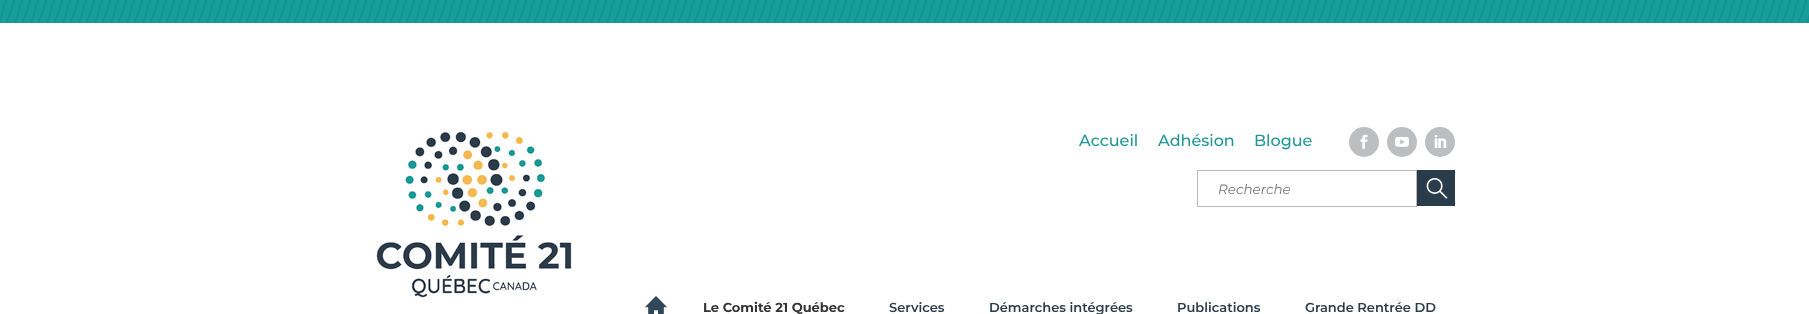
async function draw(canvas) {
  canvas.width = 1809
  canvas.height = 314
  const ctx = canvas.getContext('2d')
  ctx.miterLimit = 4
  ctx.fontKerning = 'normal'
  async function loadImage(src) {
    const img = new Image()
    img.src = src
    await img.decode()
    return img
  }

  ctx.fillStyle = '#fff'
  ctx.fillRect(0, 0, 1809, 314)
  ctx.drawImage(await loadImage('image0.png'), 0, 0, 1809, 23)
  ctx.drawImage(await loadImage('image1.png'), 376, 131, 196, 167)
  ctx.font = '500 16px Montserrat'
  ctx.fillStyle = '#219795'
  ctx.fillText('Accueil', 1079, 146)
  ctx.fillText('Adhésion', 1158, 146)
  ctx.fillText('Blogue', 1254, 146)
  ctx.fillStyle = '#bcbec0'
  ctx.beginPath()
  ctx.arc(1364, 142, 15, 0, 2 * Math.PI)
  ctx.fill()
  ctx.drawImage(await loadImage('image2.png'), 1360, 134, 8, 15)
  ctx.beginPath()
  ctx.arc(1402, 142, 15, 0, 2 * Math.PI)
  ctx.fill()
  ctx.drawImage(await loadImage('image3.png'), 1395, 136, 14, 11)
  ctx.beginPath()
  ctx.arc(1440, 142, 15, 0, 2 * Math.PI)
  ctx.fill()
  ctx.drawImage(await loadImage('image4.png'), 1434, 135, 13, 13)
  ctx.strokeStyle = '#b9babc'
  ctx.strokeRect(1197.5, 170.5, 219, 36)
  ctx.font = 'italic 13.5px Montserrat'
  ctx.fillStyle = '#757575'
  ctx.fillText('Recherche', 1218, 194)
  ctx.fillStyle = '#2a3c4c'
  ctx.fillRect(1417, 170, 38, 36)
  ctx.drawImage(await loadImage('image5.png'), 1426, 178, 22, 21)
  ctx.drawImage(await loadImage('image6.png'), 645, 296, 22, 18)
  ctx.font = 'bold 13px Montserrat'
  ctx.fillStyle = '#333'
  ctx.fillText('Le Comité 21 Québec', 703, 312)
  ctx.font = '600 13px Montserrat'
  ctx.fillStyle = '#2a3c4c'
  ctx.fillText('Services', 889, 312)
  ctx.fillText('Démarches intégrées', 989, 312)
  ctx.fillText('Publications', 1177, 312)
  ctx.fillText('Grande Rentrée DD', 1305, 312)
}

draw(document.querySelector('canvas'))
